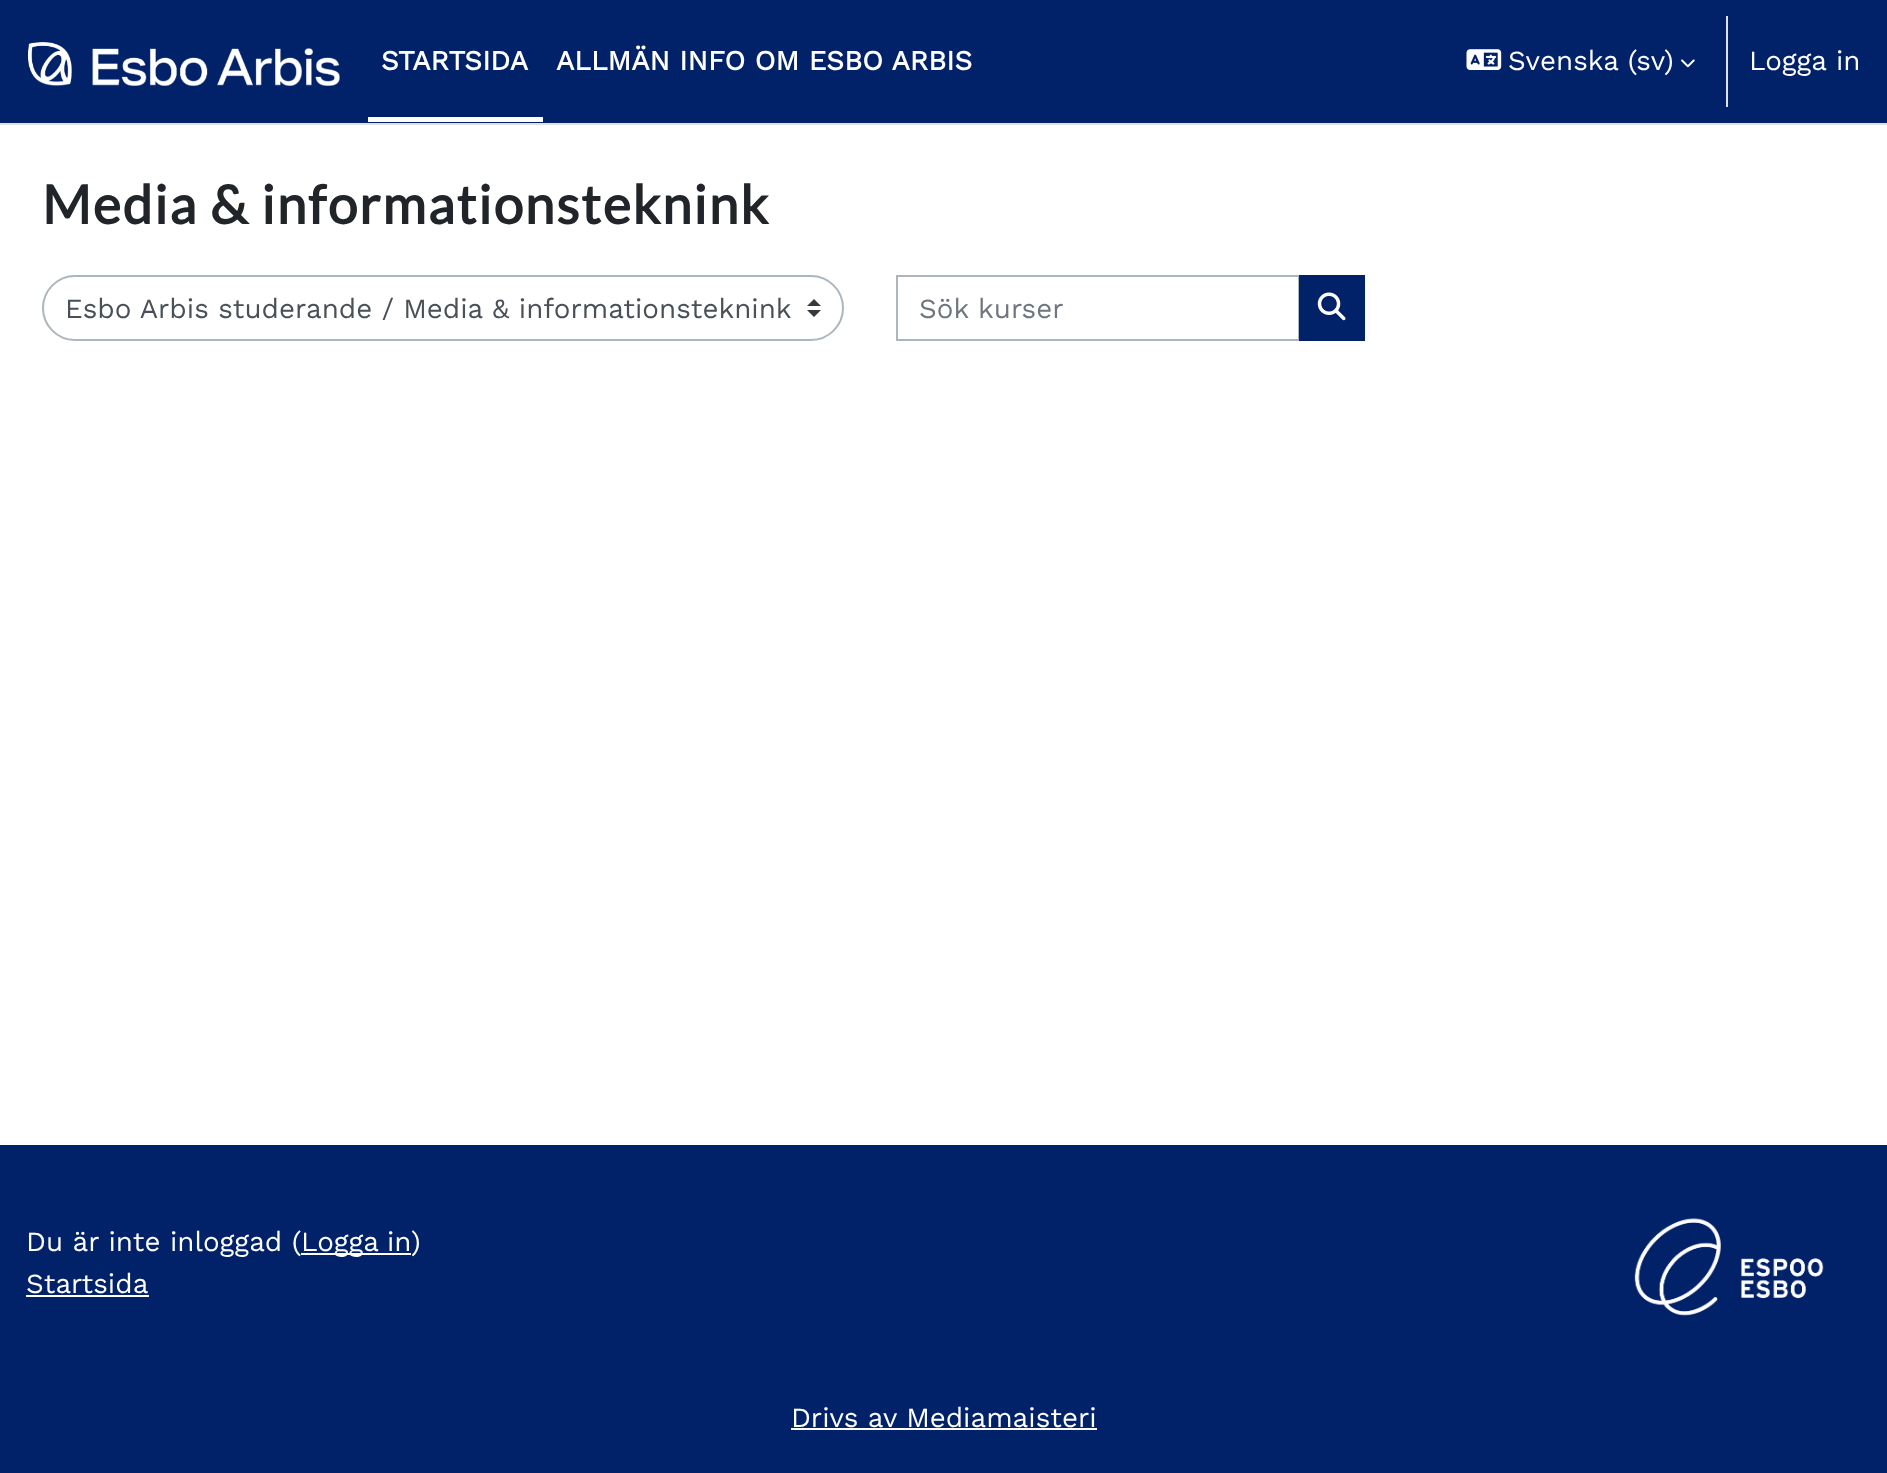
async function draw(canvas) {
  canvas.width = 1887
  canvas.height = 1473
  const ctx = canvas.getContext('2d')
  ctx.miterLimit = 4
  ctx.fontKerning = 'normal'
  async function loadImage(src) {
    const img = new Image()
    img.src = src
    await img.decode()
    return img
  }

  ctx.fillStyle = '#fff'
  ctx.fillRect(0, 0, 1887, 1473)
  ctx.fillStyle = '#012169'
  ctx.fillRect(0, 0, 1887, 123)
  ctx.fillStyle = '#dee2e6'
  ctx.fillRect(0, 123, 1887, 2)
  ctx.drawImage(await loadImage('image0.png'), 28, 42, 312, 44)
  ctx.fillStyle = '#fff'
  ctx.fillRect(368, 117, 175, 5)
  ctx.font = 'bold 27.75px Work Sans'
  ctx.fillText('STARTSIDA', 381, 70)
  ctx.fillText('ALLMÄN INFO OM ESBO ARBIS', 556, 70)
  ctx.drawImage(await loadImage('image1.png'), 1466, 49, 36, 21)
  ctx.font = '27.75px Work Sans'
  ctx.fillText('Svenska (sv)', 1508, 70)
  ctx.drawImage(await loadImage('image2.png'), 1681, 59, 14, 9)
  ctx.fillStyle = '#dee2e6'
  ctx.fillRect(1726, 16, 2, 91)
  ctx.fillStyle = '#fff'
  ctx.fillText('Logga in', 1749, 70)
  ctx.letterSpacing = '1.75px'
  ctx.font = 'bold 53.25px Lato'
  ctx.fillStyle = '#212529'
  ctx.fillText('Media & informationsteknink', 42, 224)
  ctx.fillStyle = '#373a3c'
  ctx.beginPath()
  ctx.moveTo(814, 299)
  ctx.lineTo(807, 306)
  ctx.lineTo(821, 306)
  ctx.closePath()
  ctx.moveTo(814, 317)
  ctx.lineTo(807, 310)
  ctx.lineTo(821, 310)
  ctx.closePath()
  ctx.fill()
  ctx.beginPath()
  ctx.roundRect(43, 276, 800, 64, 32)
  ctx.strokeStyle = '#adb5bd'
  ctx.lineWidth = 2
  ctx.stroke()
  ctx.letterSpacing = '0px'
  ctx.font = '27.75px Work Sans'
  ctx.fillStyle = '#495057'
  ctx.fillText('Esbo Arbis studerande / Media & informationsteknink', 65, 318)
  ctx.strokeRect(897, 276, 402, 64)
  ctx.fillStyle = '#6f7680'
  ctx.fillText('Sök kurser', 919, 318)
  ctx.fillStyle = '#012169'
  ctx.fillRect(1299, 275, 66, 66)
  ctx.drawImage(await loadImage('image3.png'), 1317, 292, 29, 29)
  ctx.fillRect(0, 1145, 1887, 328)
  ctx.fillStyle = '#fff'
  ctx.fillText('Du är inte inloggad (', 26, 1251)
  ctx.fillRect(301, 1253, 110, 2)
  ctx.wordSpacing = '-1px'
  ctx.fillText('Logga in', 301, 1251)
  ctx.wordSpacing = '0px'
  ctx.fillText(')', 411, 1251)
  ctx.fillText('Startsida', 26, 1293)
  ctx.fillRect(26, 1295, 123, 2)
  ctx.drawImage(await loadImage('image4.png'), 1634, 1218, 190, 98)
  ctx.fillText('Drivs av Mediamaisteri', 791, 1427)
  ctx.fillRect(791, 1428, 306, 2)
}

draw(document.querySelector('canvas'))
